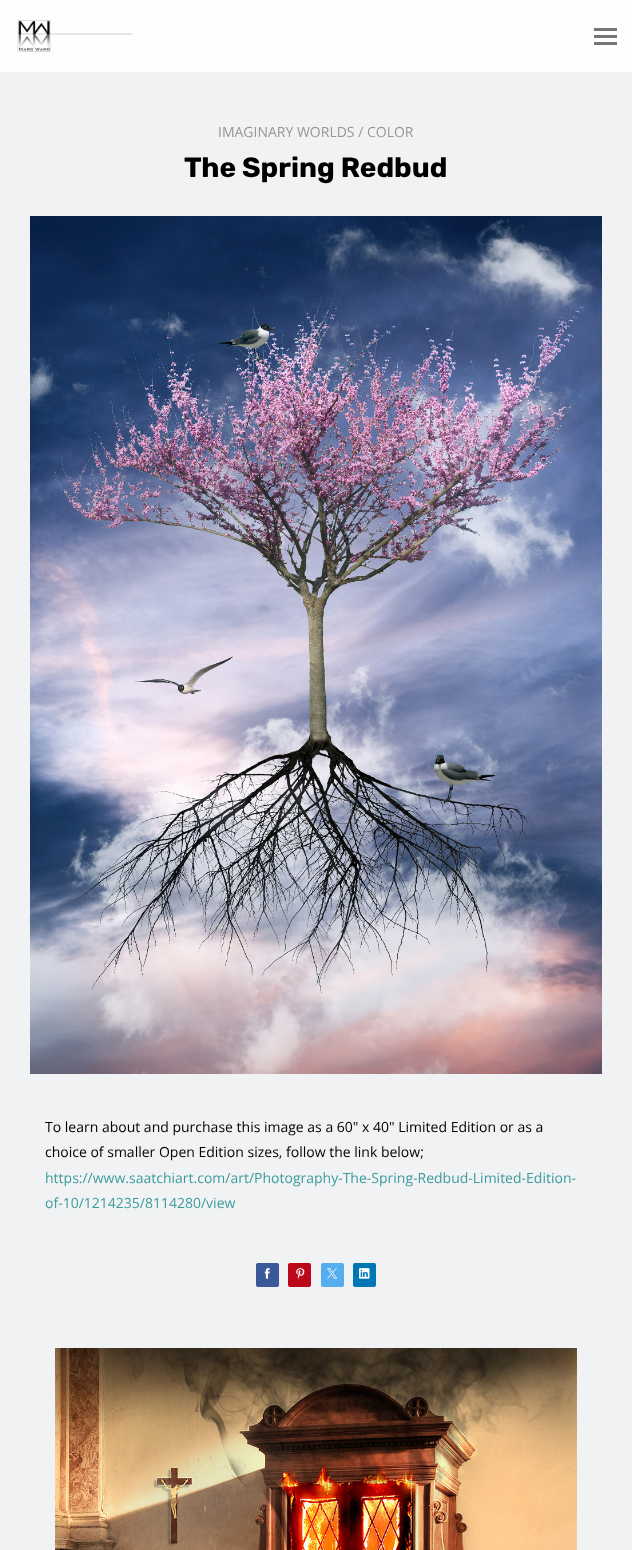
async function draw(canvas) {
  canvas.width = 632
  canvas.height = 1550
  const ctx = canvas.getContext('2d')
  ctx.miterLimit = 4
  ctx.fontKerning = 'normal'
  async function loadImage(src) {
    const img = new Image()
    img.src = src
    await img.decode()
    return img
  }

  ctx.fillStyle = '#f1f2f4'
  ctx.fillRect(0, 0, 632, 1550)
  ctx.fillStyle = '#fefefe'
  ctx.fillRect(0, 0, 632, 72)
  ctx.drawImage(await loadImage('image0.png'), 17, 20, 116, 32)
  ctx.fillStyle = '#767676'
  ctx.fillRect(594, 28, 23, 3)
  ctx.fillRect(594, 35, 23, 3)
  ctx.fillRect(594, 42, 23, 3)
  ctx.font = '14px Open Sans'
  ctx.fillStyle = '#979797'
  ctx.fillText('IMAGINARY WORLDS / COLOR', 218, 137)
  ctx.font = 'bold 28px Rubik'
  ctx.fillStyle = '#000'
  ctx.fillText('The Spring Redbud', 184, 177)
  ctx.drawImage(await loadImage('image1.png'), 30, 216, 572, 858)
  ctx.font = '14px Open Sans'
  ctx.fillText('To learn about and purchase this image as a 60" x 40" Limited Edition or as a', 45, 1132)
  ctx.fillText('choice of smaller Open Edition sizes, follow the link below;', 45, 1157)
  ctx.fillStyle = '#3d9b9c'
  ctx.fillText('https://www.saatchiart.com/art/Photography-The-Spring-Redbud-Limited-Edition-', 45, 1183)
  ctx.fillText('of-10/1214235/8114280/view', 45, 1208)
  ctx.fillStyle = '#3b5999'
  ctx.beginPath()
  ctx.roundRect(256, 1263, 23, 24, 2)
  ctx.fill()
  ctx.drawImage(await loadImage('image2.png'), 264, 1268, 6, 11)
  ctx.fillStyle = '#bd081c'
  ctx.beginPath()
  ctx.roundRect(288, 1263, 23, 24, 2)
  ctx.fill()
  ctx.drawImage(await loadImage('image3.png'), 296, 1268, 9, 11)
  ctx.fillStyle = '#55acee'
  ctx.beginPath()
  ctx.roundRect(321, 1263, 23, 24, 2)
  ctx.fill()
  ctx.drawImage(await loadImage('image4.png'), 327, 1268, 11, 11)
  ctx.fillStyle = '#0077b5'
  ctx.beginPath()
  ctx.roundRect(353, 1263, 23, 24, 2)
  ctx.fill()
  ctx.drawImage(await loadImage('image5.png'), 359, 1268, 11, 11)
  ctx.drawImage(await loadImage('image6.png'), 55, 1348, 522, 202)
}

draw(document.querySelector('canvas'))
